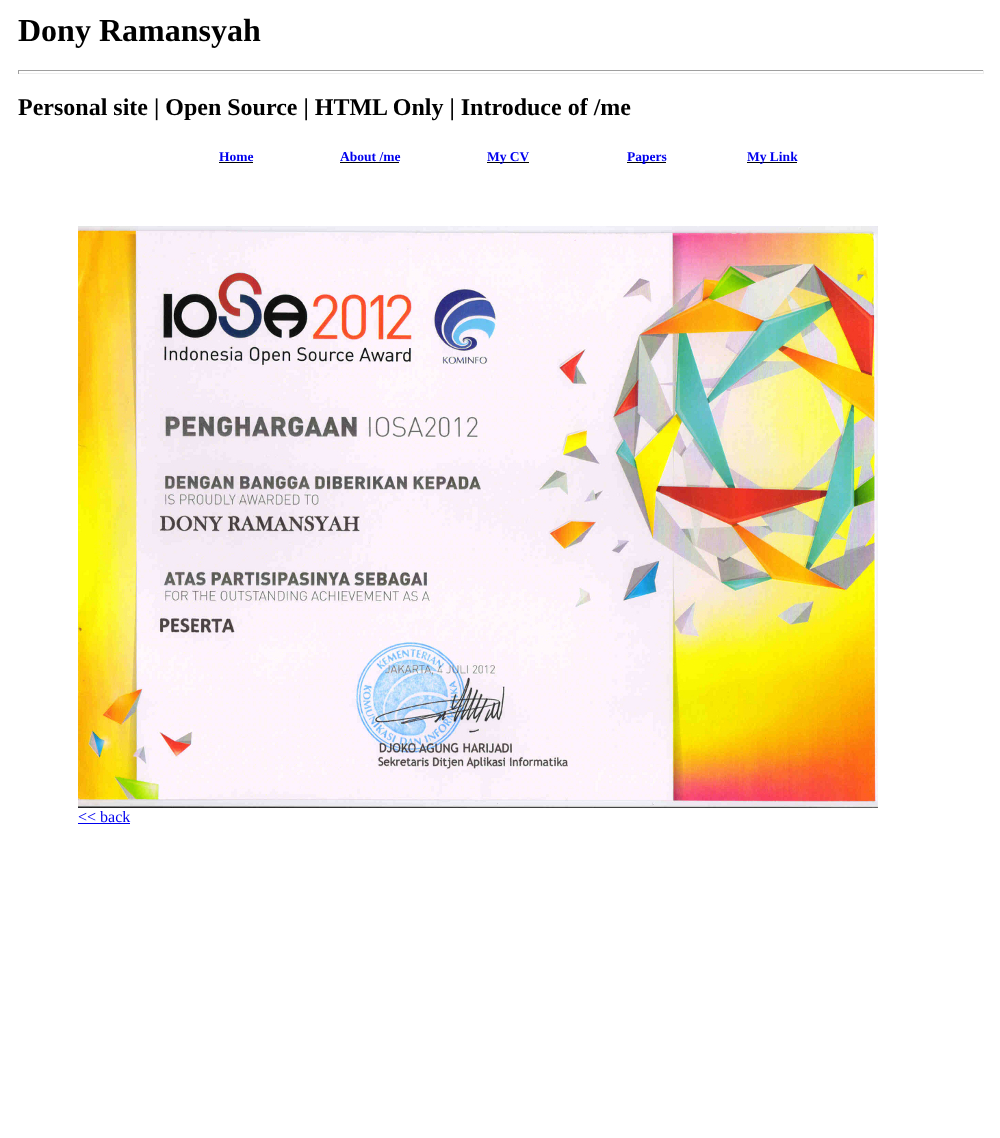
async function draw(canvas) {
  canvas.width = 1000
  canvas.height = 1138
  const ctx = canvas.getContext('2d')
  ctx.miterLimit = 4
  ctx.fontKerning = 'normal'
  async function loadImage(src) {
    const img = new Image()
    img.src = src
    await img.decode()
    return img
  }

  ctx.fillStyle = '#fff'
  ctx.fillRect(0, 0, 1000, 1138)
  ctx.font = 'bold 32px Liberation Serif'
  ctx.fillStyle = '#000'
  ctx.fillText('Dony Ramansyah', 18, 41)
  ctx.fillStyle = '#9f9f9f'
  ctx.fillRect(18, 70, 966, 1)
  ctx.fillStyle = '#eee'
  ctx.fillRect(983, 70, 1, 4)
  ctx.fillRect(18, 73, 966, 1)
  ctx.fillStyle = '#9f9f9f'
  ctx.fillRect(18, 70, 1, 4)
  ctx.font = 'bold 24px Liberation Serif'
  ctx.fillStyle = '#000'
  ctx.fillText('Personal site | Open Source | HTML Only | Introduce of /me', 18, 115)
  ctx.font = 'bold 13.5px Liberation Serif'
  ctx.fillStyle = '#00e'
  ctx.fillText('Home', 219, 161)
  ctx.fillStyle = '#000'
  ctx.fillRect(219, 162, 34, 1)
  ctx.fillStyle = '#00e'
  ctx.fillText('About /me', 340, 161)
  ctx.fillStyle = '#000'
  ctx.fillRect(340, 162, 59, 1)
  ctx.fillRect(487, 162, 42, 1)
  ctx.fillStyle = '#00e'
  ctx.fillText('My CV', 487, 161)
  ctx.fillStyle = '#000'
  ctx.fillRect(627, 162, 39, 1)
  ctx.fillStyle = '#00e'
  ctx.fillText('Papers', 627, 161)
  ctx.fillStyle = '#000'
  ctx.fillRect(747, 162, 50, 1)
  ctx.fillStyle = '#00e'
  ctx.fillText('My Link', 747, 161)
  ctx.drawImage(await loadImage('image0.png'), 78, 226, 800, 582)
  ctx.font = '16px Liberation Serif'
  ctx.fillText('<< back', 78, 822)
  ctx.fillRect(78, 823, 52, 1)
}

draw(document.querySelector('canvas'))
